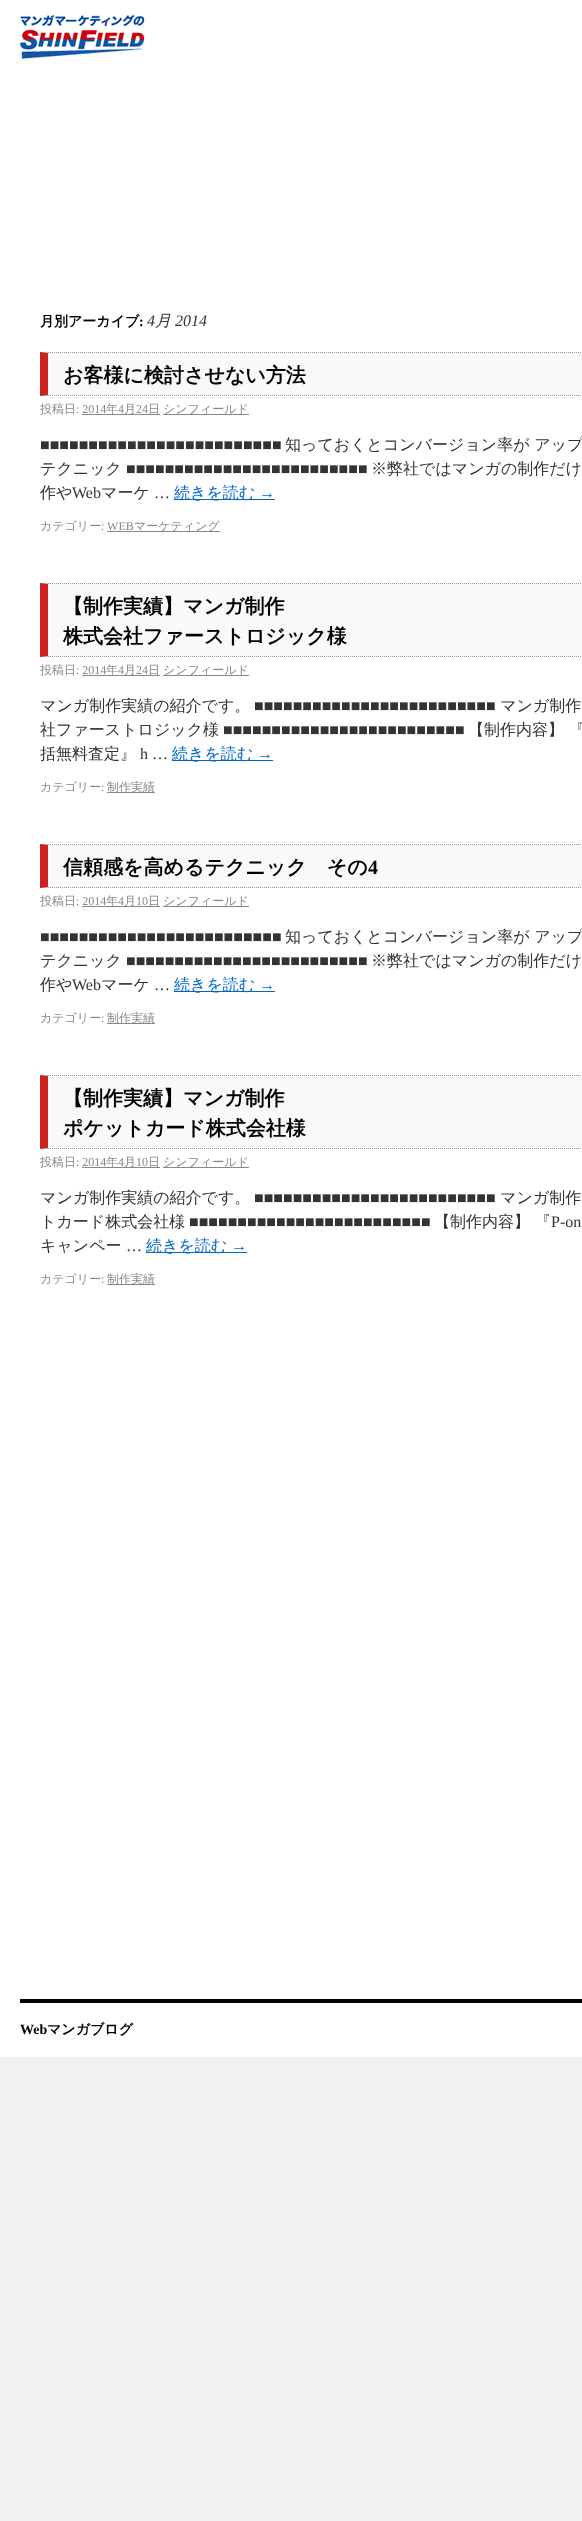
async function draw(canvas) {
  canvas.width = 582
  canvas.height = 2521
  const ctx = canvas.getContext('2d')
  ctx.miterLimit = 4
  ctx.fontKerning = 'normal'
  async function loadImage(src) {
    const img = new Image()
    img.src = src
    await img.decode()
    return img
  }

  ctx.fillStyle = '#f1f1f1'
  ctx.fillRect(0, 0, 582, 2521)
  ctx.fillStyle = '#fff'
  ctx.fillRect(0, 0, 582, 2057)
  ctx.drawImage(await loadImage('image0.png'), 20, 15, 125, 44)
  ctx.font = 'bold 14px WenQuanYi Zen Hei'
  ctx.fillStyle = '#000'
  ctx.fillText('月別アーカイブ', 40, 326)
  ctx.font = 'bold 14px Liberation Serif'
  ctx.fillText(':', 139, 326)
  ctx.font = 'italic 16px Liberation Serif'
  ctx.fillStyle = '#333'
  ctx.fillText('4', 147, 326)
  ctx.font = 'italic 500 16px WenQuanYi Zen Hei'
  ctx.fillText('月', 155, 326)
  ctx.font = 'italic 16px Liberation Serif'
  ctx.fillText('2014', 175, 326)
  ctx.fillStyle = '#f9f9f9'
  ctx.fillRect(41, 352, 541, 44)
  ctx.beginPath()
  ctx.moveTo(40, 352.5)
  ctx.lineTo(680, 352.5)
  ctx.strokeStyle = '#999'
  ctx.setLineDash([1, 1])
  ctx.stroke()
  ctx.beginPath()
  ctx.moveTo(40, 395.5)
  ctx.lineTo(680, 395.5)
  ctx.stroke()
  ctx.fillStyle = '#c22'
  ctx.beginPath()
  ctx.moveTo(40, 396)
  ctx.lineTo(40, 352)
  ctx.lineTo(48, 353)
  ctx.lineTo(48, 395)
  ctx.closePath()
  ctx.fill()
  ctx.font = 'bold 20px WenQuanYi Zen Hei'
  ctx.fillStyle = '#000'
  ctx.fillText('お客様に検討させない方法', 63, 382)
  ctx.font = '500 12px WenQuanYi Zen Hei'
  ctx.fillStyle = '#888'
  ctx.fillText('投稿日', 40, 413)
  ctx.font = '12px Liberation Serif'
  ctx.fillText(': 2014', 76, 413)
  ctx.fillRect(82, 414, 78, 1)
  ctx.font = '500 12px WenQuanYi Zen Hei'
  ctx.fillText('年', 106, 413)
  ctx.font = '12px Liberation Serif'
  ctx.fillText('4', 118, 413)
  ctx.font = '500 12px WenQuanYi Zen Hei'
  ctx.fillText('月', 124, 413)
  ctx.font = '12px Liberation Serif'
  ctx.fillText('24', 136, 413)
  ctx.font = '500 12px WenQuanYi Zen Hei'
  ctx.fillText('日', 148, 413)
  ctx.fillRect(163, 414, 86, 1)
  ctx.fillText('シンフィールド', 163, 413)
  ctx.font = '16px Liberation Serif'
  ctx.fillStyle = '#333'
  ctx.fillText('■■■■■■■■■■■■■■■■■■■■■■■■■', 40, 450)
  ctx.font = '500 16px WenQuanYi Zen Hei'
  ctx.fillText('知っておくとコンバージョン率が アップ', 285, 450)
  ctx.fillText('テクニック', 40, 474)
  ctx.font = '16px Liberation Serif'
  ctx.fillText('■■■■■■■■■■■■■■■■■■■■■■■■■', 126, 474)
  ctx.font = '500 16px WenQuanYi Zen Hei'
  ctx.fillText('※弊社ではマンガの制作だけ', 371, 474)
  ctx.fillText('作や', 40, 498)
  ctx.font = '16px Liberation Serif'
  ctx.fillText('Web', 72, 498)
  ctx.font = '500 16px WenQuanYi Zen Hei'
  ctx.fillText('マーケ', 101, 498)
  ctx.font = '16px Liberation Serif'
  ctx.fillText('…', 154, 498)
  ctx.fillStyle = '#06c'
  ctx.fillRect(174, 499, 101, 1)
  ctx.font = '500 16px WenQuanYi Zen Hei'
  ctx.fillText('続きを読む', 174, 498)
  ctx.font = '16px Liberation Serif'
  ctx.fillText('→', 259, 498)
  ctx.font = '500 12px WenQuanYi Zen Hei'
  ctx.fillStyle = '#888'
  ctx.fillText('カテゴリー', 40, 530)
  ctx.font = '12px Liberation Serif'
  ctx.fillText(': WEB', 101, 530)
  ctx.fillRect(107, 531, 113, 1)
  ctx.font = '500 12px WenQuanYi Zen Hei'
  ctx.fillText('マーケティング', 134, 530)
  ctx.fillStyle = '#f9f9f9'
  ctx.fillRect(41, 583, 541, 74)
  ctx.beginPath()
  ctx.moveTo(40, 583.5)
  ctx.lineTo(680, 583.5)
  ctx.stroke()
  ctx.beginPath()
  ctx.moveTo(40, 656.5)
  ctx.lineTo(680, 656.5)
  ctx.stroke()
  ctx.fillStyle = '#c22'
  ctx.beginPath()
  ctx.moveTo(40, 657)
  ctx.lineTo(40, 583)
  ctx.lineTo(48, 584)
  ctx.lineTo(48, 656)
  ctx.closePath()
  ctx.fill()
  ctx.font = 'bold 20px WenQuanYi Zen Hei'
  ctx.fillStyle = '#000'
  ctx.fillText('【制作実績】マンガ制作', 63, 613)
  ctx.fillText('株式会社ファーストロジック様', 63, 643)
  ctx.font = '500 12px WenQuanYi Zen Hei'
  ctx.fillStyle = '#888'
  ctx.fillText('投稿日', 40, 674)
  ctx.font = '12px Liberation Serif'
  ctx.fillText(': 2014', 76, 674)
  ctx.fillRect(82, 675, 78, 1)
  ctx.font = '500 12px WenQuanYi Zen Hei'
  ctx.fillText('年', 106, 674)
  ctx.font = '12px Liberation Serif'
  ctx.fillText('4', 118, 674)
  ctx.font = '500 12px WenQuanYi Zen Hei'
  ctx.fillText('月', 124, 674)
  ctx.font = '12px Liberation Serif'
  ctx.fillText('24', 136, 674)
  ctx.font = '500 12px WenQuanYi Zen Hei'
  ctx.fillText('日', 148, 674)
  ctx.fillRect(163, 675, 86, 1)
  ctx.fillText('シンフィールド', 163, 674)
  ctx.font = '500 16px WenQuanYi Zen Hei'
  ctx.fillStyle = '#333'
  ctx.fillText('マンガ制作実績の紹介です。', 40, 711)
  ctx.font = '16px Liberation Serif'
  ctx.fillText('■■■■■■■■■■■■■■■■■■■■■■■■■', 254, 711)
  ctx.font = '500 16px WenQuanYi Zen Hei'
  ctx.fillText('マンガ制作', 500, 711)
  ctx.fillText('社ファーストロジック様', 40, 735)
  ctx.font = '16px Liberation Serif'
  ctx.fillText('■■■■■■■■■■■■■■■■■■■■■■■■■', 223, 735)
  ctx.font = '500 16px WenQuanYi Zen Hei'
  ctx.fillText('【制作内容】 『', 468, 735)
  ctx.fillText('括無料査定』', 40, 759)
  ctx.font = '16px Liberation Serif'
  ctx.fillText('h …', 140, 759)
  ctx.fillStyle = '#06c'
  ctx.fillRect(172, 760, 101, 1)
  ctx.font = '500 16px WenQuanYi Zen Hei'
  ctx.fillText('続きを読む', 172, 759)
  ctx.font = '16px Liberation Serif'
  ctx.fillText('→', 257, 759)
  ctx.font = '500 12px WenQuanYi Zen Hei'
  ctx.fillStyle = '#888'
  ctx.fillText('カテゴリー', 40, 791)
  ctx.font = '12px Liberation Serif'
  ctx.fillText(':', 101, 791)
  ctx.fillRect(107, 792, 48, 1)
  ctx.font = '500 12px WenQuanYi Zen Hei'
  ctx.fillText('制作実績', 107, 791)
  ctx.fillStyle = '#f9f9f9'
  ctx.fillRect(41, 844, 541, 44)
  ctx.beginPath()
  ctx.moveTo(40, 844.5)
  ctx.lineTo(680, 844.5)
  ctx.stroke()
  ctx.beginPath()
  ctx.moveTo(40, 887.5)
  ctx.lineTo(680, 887.5)
  ctx.stroke()
  ctx.fillStyle = '#c22'
  ctx.beginPath()
  ctx.moveTo(40, 888)
  ctx.lineTo(40, 844)
  ctx.lineTo(48, 845)
  ctx.lineTo(48, 887)
  ctx.closePath()
  ctx.fill()
  ctx.font = 'bold 20px WenQuanYi Zen Hei'
  ctx.fillStyle = '#000'
  ctx.fillText('信頼感を高めるテクニック　その', 63, 874)
  ctx.font = 'bold 20px Liberation Serif'
  ctx.fillText('4', 368, 874)
  ctx.font = '500 12px WenQuanYi Zen Hei'
  ctx.fillStyle = '#888'
  ctx.fillText('投稿日', 40, 905)
  ctx.font = '12px Liberation Serif'
  ctx.fillText(': 2014', 76, 905)
  ctx.fillRect(82, 906, 78, 1)
  ctx.font = '500 12px WenQuanYi Zen Hei'
  ctx.fillText('年', 106, 905)
  ctx.font = '12px Liberation Serif'
  ctx.fillText('4', 118, 905)
  ctx.font = '500 12px WenQuanYi Zen Hei'
  ctx.fillText('月', 124, 905)
  ctx.font = '12px Liberation Serif'
  ctx.fillText('10', 136, 905)
  ctx.font = '500 12px WenQuanYi Zen Hei'
  ctx.fillText('日', 148, 905)
  ctx.fillRect(163, 906, 86, 1)
  ctx.fillText('シンフィールド', 163, 905)
  ctx.font = '16px Liberation Serif'
  ctx.fillStyle = '#333'
  ctx.fillText('■■■■■■■■■■■■■■■■■■■■■■■■■', 40, 942)
  ctx.font = '500 16px WenQuanYi Zen Hei'
  ctx.fillText('知っておくとコンバージョン率が アップ', 285, 942)
  ctx.fillText('テクニック', 40, 966)
  ctx.font = '16px Liberation Serif'
  ctx.fillText('■■■■■■■■■■■■■■■■■■■■■■■■■', 126, 966)
  ctx.font = '500 16px WenQuanYi Zen Hei'
  ctx.fillText('※弊社ではマンガの制作だけ', 371, 966)
  ctx.fillText('作や', 40, 990)
  ctx.font = '16px Liberation Serif'
  ctx.fillText('Web', 72, 990)
  ctx.font = '500 16px WenQuanYi Zen Hei'
  ctx.fillText('マーケ', 101, 990)
  ctx.font = '16px Liberation Serif'
  ctx.fillText('…', 154, 990)
  ctx.fillStyle = '#06c'
  ctx.fillRect(174, 991, 101, 1)
  ctx.font = '500 16px WenQuanYi Zen Hei'
  ctx.fillText('続きを読む', 174, 990)
  ctx.font = '16px Liberation Serif'
  ctx.fillText('→', 259, 990)
  ctx.font = '500 12px WenQuanYi Zen Hei'
  ctx.fillStyle = '#888'
  ctx.fillText('カテゴリー', 40, 1022)
  ctx.font = '12px Liberation Serif'
  ctx.fillText(':', 101, 1022)
  ctx.fillRect(107, 1023, 48, 1)
  ctx.font = '500 12px WenQuanYi Zen Hei'
  ctx.fillText('制作実績', 107, 1022)
  ctx.fillStyle = '#f9f9f9'
  ctx.fillRect(41, 1075, 541, 74)
  ctx.beginPath()
  ctx.moveTo(40, 1075.5)
  ctx.lineTo(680, 1075.5)
  ctx.stroke()
  ctx.beginPath()
  ctx.moveTo(40, 1148.5)
  ctx.lineTo(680, 1148.5)
  ctx.stroke()
  ctx.fillStyle = '#c22'
  ctx.beginPath()
  ctx.moveTo(40, 1149)
  ctx.lineTo(40, 1075)
  ctx.lineTo(48, 1076)
  ctx.lineTo(48, 1148)
  ctx.closePath()
  ctx.fill()
  ctx.font = 'bold 20px WenQuanYi Zen Hei'
  ctx.fillStyle = '#000'
  ctx.fillText('【制作実績】マンガ制作', 63, 1105)
  ctx.fillText('ポケットカード株式会社様', 63, 1135)
  ctx.font = '500 12px WenQuanYi Zen Hei'
  ctx.fillStyle = '#888'
  ctx.fillText('投稿日', 40, 1166)
  ctx.font = '12px Liberation Serif'
  ctx.fillText(': 2014', 76, 1166)
  ctx.fillRect(82, 1167, 78, 1)
  ctx.font = '500 12px WenQuanYi Zen Hei'
  ctx.fillText('年', 106, 1166)
  ctx.font = '12px Liberation Serif'
  ctx.fillText('4', 118, 1166)
  ctx.font = '500 12px WenQuanYi Zen Hei'
  ctx.fillText('月', 124, 1166)
  ctx.font = '12px Liberation Serif'
  ctx.fillText('10', 136, 1166)
  ctx.font = '500 12px WenQuanYi Zen Hei'
  ctx.fillText('日', 148, 1166)
  ctx.fillRect(163, 1167, 86, 1)
  ctx.fillText('シンフィールド', 163, 1166)
  ctx.font = '500 16px WenQuanYi Zen Hei'
  ctx.fillStyle = '#333'
  ctx.fillText('マンガ制作実績の紹介です。', 40, 1203)
  ctx.font = '16px Liberation Serif'
  ctx.fillText('■■■■■■■■■■■■■■■■■■■■■■■■■', 254, 1203)
  ctx.font = '500 16px WenQuanYi Zen Hei'
  ctx.fillText('マンガ制作', 500, 1203)
  ctx.fillText('トカード株式会社様', 40, 1227)
  ctx.font = '16px Liberation Serif'
  ctx.fillText('■■■■■■■■■■■■■■■■■■■■■■■■■', 189, 1227)
  ctx.font = '500 16px WenQuanYi Zen Hei'
  ctx.fillText('【制作内容】 『', 434, 1227)
  ctx.font = '16px Liberation Serif'
  ctx.fillText('P-on', 551, 1227)
  ctx.font = '500 16px WenQuanYi Zen Hei'
  ctx.fillText('キャンペー', 40, 1251)
  ctx.font = '16px Liberation Serif'
  ctx.fillText('…', 126, 1251)
  ctx.fillStyle = '#06c'
  ctx.fillRect(146, 1252, 101, 1)
  ctx.font = '500 16px WenQuanYi Zen Hei'
  ctx.fillText('続きを読む', 146, 1251)
  ctx.font = '16px Liberation Serif'
  ctx.fillText('→', 231, 1251)
  ctx.font = '500 12px WenQuanYi Zen Hei'
  ctx.fillStyle = '#888'
  ctx.fillText('カテゴリー', 40, 1283)
  ctx.font = '12px Liberation Serif'
  ctx.fillText(':', 101, 1283)
  ctx.fillRect(107, 1284, 48, 1)
  ctx.font = '500 12px WenQuanYi Zen Hei'
  ctx.fillText('制作実績', 107, 1283)
  ctx.fillStyle = '#000'
  ctx.fillRect(20, 1999, 562, 4)
  ctx.font = 'bold 14px Liberation Serif'
  ctx.fillText('Web', 20, 2034)
  ctx.font = 'bold 14px WenQuanYi Zen Hei'
  ctx.fillText('マンガブログ', 47, 2034)
}

draw(document.querySelector('canvas'))
